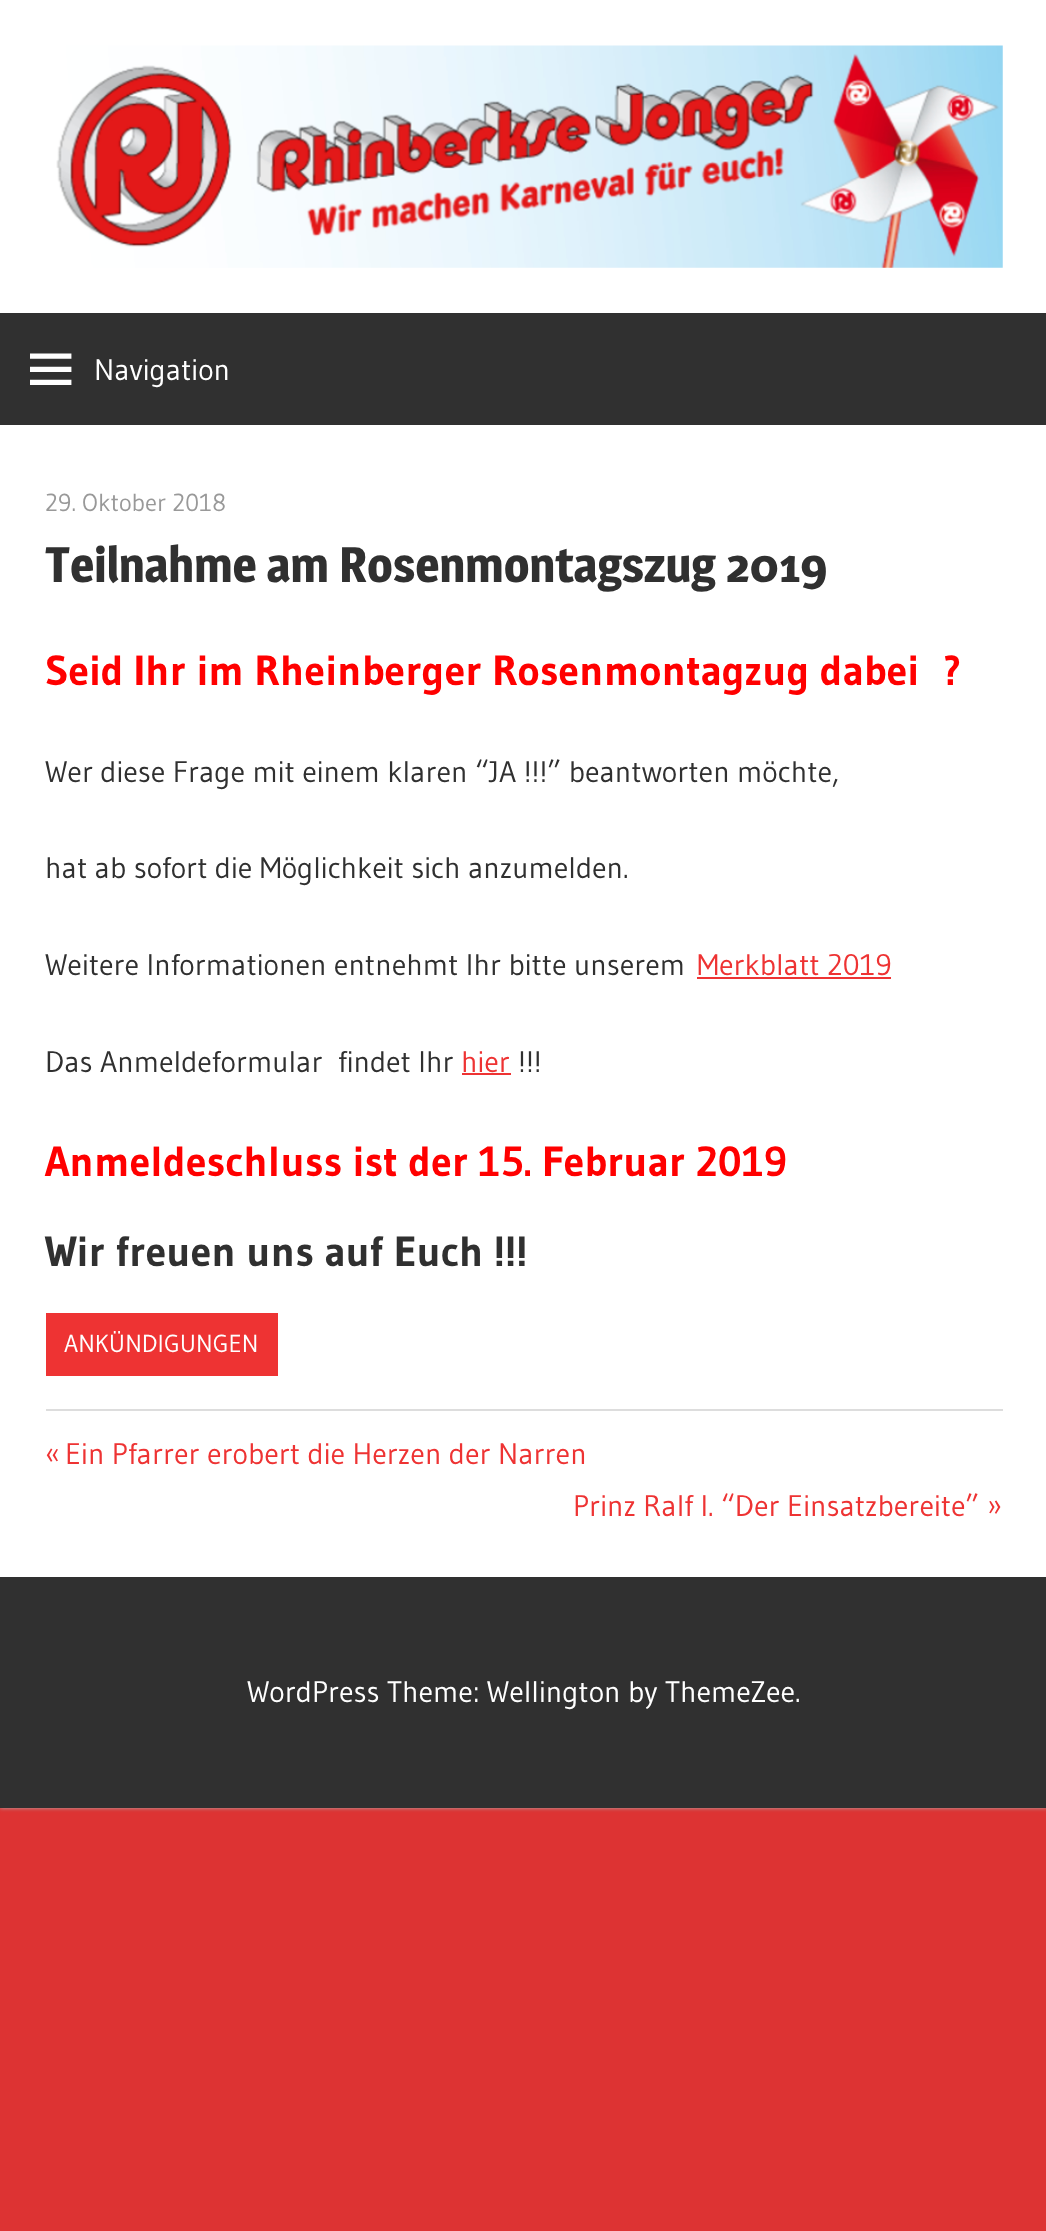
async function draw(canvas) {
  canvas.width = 1046
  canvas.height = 2231
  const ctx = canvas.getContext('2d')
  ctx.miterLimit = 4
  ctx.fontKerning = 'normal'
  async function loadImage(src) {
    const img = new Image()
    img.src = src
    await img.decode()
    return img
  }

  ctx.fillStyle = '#d33'
  ctx.fillRect(0, 0, 1046, 2231)
  ctx.fillStyle = '#aaa'
  ctx.filter = 'blur(2px)'
  ctx.beginPath()
  ctx.rect(0, 0, 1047, 1808)
  ctx.fill()
  ctx.filter = 'none'
  ctx.fillStyle = '#fff'
  ctx.fillRect(0, 0, 1046, 1577)
  ctx.drawImage(await loadImage('image0.png'), 56, 45, 947, 223)
  ctx.fillStyle = '#303030'
  ctx.fillRect(0, 313, 1046, 112)
  ctx.drawImage(await loadImage('image1.png'), 30, 353, 42, 32)
  ctx.font = '29.75px Gudea'
  ctx.fillStyle = '#fff'
  ctx.fillText('Navigation', 94, 380)
  ctx.font = '24.5px Gudea'
  ctx.fillStyle = '#999'
  ctx.fillText('29. Oktober 2018', 45, 511)
  ctx.font = 'bold 49px Magra'
  ctx.fillStyle = '#303030'
  ctx.fillText('Teilnahme am Rosenmontagszug 2019', 45, 582)
  ctx.font = 'bold 42px Gudea'
  ctx.fillStyle = '#f00'
  ctx.fillText('Seid Ihr im Rheinberger Rosenmontagzug dabei', 45, 685)
  ctx.fillText('?', 942, 685)
  ctx.font = '29.75px Gudea'
  ctx.fillStyle = '#303030'
  ctx.fillText('Wer diese Frage mit einem klaren “JA !!!” beantworten möchte,', 45, 782)
  ctx.fillText('hat ab sofort die Möglichkeit sich anzumelden.', 45, 878)
  ctx.fillText('Weitere Informationen entnehmt Ihr bitte unserem', 45, 975)
  ctx.fillStyle = '#e33'
  ctx.fillText('Merkblatt 2019', 697, 975)
  ctx.fillRect(697, 977, 194, 2)
  ctx.fillStyle = '#303030'
  ctx.fillText('Das Anmeldeformular', 45, 1072)
  ctx.fillText('findet Ihr', 338, 1072)
  ctx.fillStyle = '#e33'
  ctx.fillText('hier', 461, 1072)
  ctx.fillRect(462, 1073, 49, 2)
  ctx.fillStyle = '#303030'
  ctx.fillText('!!!', 518, 1072)
  ctx.font = 'bold 42px Gudea'
  ctx.fillStyle = '#f00'
  ctx.fillText('Anmeldeschluss ist der 15. Februar 2019', 45, 1176)
  ctx.fillStyle = '#303030'
  ctx.fillText('Wir freuen uns auf Euch !!!', 45, 1266)
  ctx.fillStyle = '#e33'
  ctx.fillRect(46, 1313, 232, 63)
  ctx.font = '24.5px Gudea'
  ctx.fillStyle = '#fff'
  ctx.fillText('ANKÜNDIGUNGEN', 64, 1352)
  ctx.fillStyle = '#ddd'
  ctx.fillRect(46, 1409, 957, 2)
  ctx.font = '29.75px Gudea'
  ctx.fillStyle = '#e33'
  ctx.fillText('«', 45, 1464)
  ctx.fillText('Ein Pfarrer erobert die Herzen der Narren', 65, 1464)
  ctx.fillText('Prinz Ralf I. “Der Einsatzbereite”', 573, 1516)
  ctx.fillText('»', 987, 1516)
  ctx.fillStyle = '#303030'
  ctx.fillRect(0, 1577, 1046, 231)
  ctx.fillStyle = '#fff'
  ctx.fillText('WordPress Theme: Wellington by ThemeZee.', 247, 1702)
}

draw(document.querySelector('canvas'))
